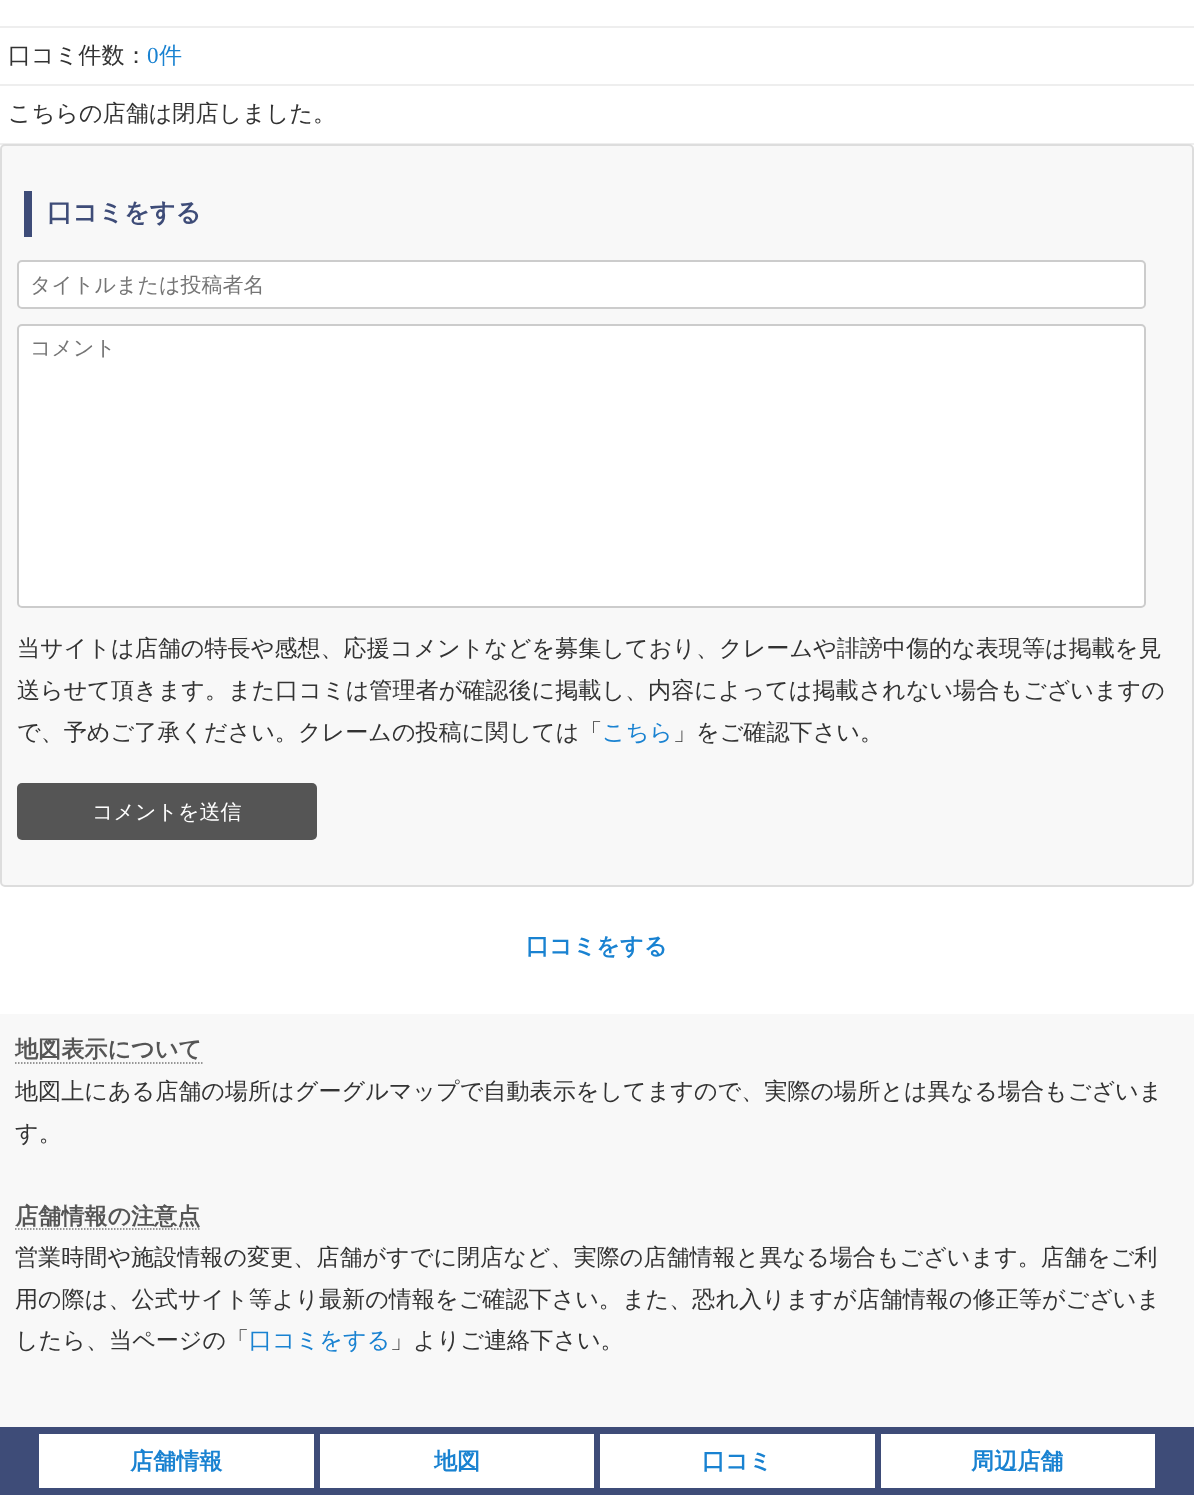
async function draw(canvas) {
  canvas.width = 1194
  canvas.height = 1495
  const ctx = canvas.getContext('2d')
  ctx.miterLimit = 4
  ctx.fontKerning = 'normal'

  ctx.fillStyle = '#fff'
  ctx.fillRect(0, 0, 1194, 1495)
  ctx.fillStyle = '#eee'
  ctx.fillRect(0, 26, 1194, 2)
  ctx.fillRect(0, 84, 1194, 2)
  ctx.font = '500 23.1px WenQuanYi Zen Hei'
  ctx.fillStyle = '#333'
  ctx.fillText('口コミ件数：', 8, 63)
  ctx.font = '23.1px Liberation Serif'
  ctx.fillStyle = '#1982d1'
  ctx.fillText('0', 147, 63)
  ctx.font = '500 23.1px WenQuanYi Zen Hei'
  ctx.fillText('件', 159, 63)
  ctx.fillStyle = '#eee'
  ctx.fillRect(0, 143, 1194, 2)
  ctx.fillStyle = '#333'
  ctx.fillText('こちらの店舗は閉店しました。', 8, 121)
  ctx.fillStyle = '#f8f8f8'
  ctx.beginPath()
  ctx.roundRect(1, 145, 1192, 741, 4)
  ctx.fill()
  ctx.strokeStyle = '#ddd'
  ctx.lineWidth = 2
  ctx.stroke()
  ctx.fillStyle = '#3e4c78'
  ctx.fillRect(24, 191, 8, 46)
  ctx.font = 'bold 25.25px WenQuanYi Zen Hei'
  ctx.fillText('口コミをする', 47, 221)
  ctx.fillStyle = '#fff'
  ctx.beginPath()
  ctx.roundRect(18, 261, 1127, 47, 4)
  ctx.fill()
  ctx.strokeStyle = '#ccc'
  ctx.stroke()
  ctx.font = '500 21px WenQuanYi Zen Hei'
  ctx.fillStyle = '#757575'
  ctx.fillText('タイトルまたは投稿者名', 30, 292)
  ctx.fillStyle = '#fff'
  ctx.beginPath()
  ctx.roundRect(18, 325, 1127, 282, 4)
  ctx.fill()
  ctx.stroke()
  ctx.fillStyle = '#757575'
  ctx.fillText('コメント', 30, 355)
  ctx.font = '500 23.1px WenQuanYi Zen Hei'
  ctx.fillStyle = '#333'
  ctx.fillText('当サイトは店舗の特長や感想、応援コメントなどを募集しており、クレームや誹謗中傷的な表現等は掲載を見', 17, 656)
  ctx.fillText('送らせて頂きます。また口コミは管理者が確認後に掲載し、内容によっては掲載されない場合もございますの', 17, 698)
  ctx.fillText('で、予めご了承ください。クレームの投稿に関しては「', 17, 740)
  ctx.fillStyle = '#1982d1'
  ctx.fillText('こちら', 602, 740)
  ctx.fillStyle = '#333'
  ctx.fillText('」をご確認下さい。', 673, 740)
  ctx.fillStyle = '#555'
  ctx.beginPath()
  ctx.roundRect(17, 783, 300, 57, 5)
  ctx.fill()
  ctx.font = '500 21px WenQuanYi Zen Hei'
  ctx.fillStyle = '#fff'
  ctx.fillText('コメントを送信', 92, 819)
  ctx.font = 'bold 23.1px WenQuanYi Zen Hei'
  ctx.fillStyle = '#1982d1'
  ctx.fillText('口コミをする', 526, 954)
  ctx.fillStyle = '#f8f8f8'
  ctx.fillRect(0, 1014, 1194, 413)
  ctx.fillStyle = '#555'
  ctx.fillText('地図表示について', 15, 1057)
  ctx.beginPath()
  ctx.moveTo(15, 1063)
  ctx.lineTo(202.5, 1063)
  ctx.strokeStyle = '#777'
  ctx.lineWidth = 1.5
  ctx.setLineDash([1.5, 1.5])
  ctx.stroke()
  ctx.font = '500 23.1px WenQuanYi Zen Hei'
  ctx.fillStyle = '#333'
  ctx.fillText('地図上にある店舗の場所はグーグルマップで自動表示をしてますので、実際の場所とは異なる場合もございま', 15, 1099)
  ctx.fillText('す。', 15, 1141)
  ctx.font = 'bold 23.1px WenQuanYi Zen Hei'
  ctx.fillStyle = '#555'
  ctx.fillText('店舗情報の注意点', 15, 1224)
  ctx.beginPath()
  ctx.moveTo(15, 1229)
  ctx.lineTo(201, 1229)
  ctx.stroke()
  ctx.font = '500 23.1px WenQuanYi Zen Hei'
  ctx.fillStyle = '#333'
  ctx.fillText('営業時間や施設情報の変更、店舗がすでに閉店など、実際の店舗情報と異なる場合もございます。店舗をご利', 15, 1265)
  ctx.fillText('用の際は、公式サイト等より最新の情報をご確認下さい。また、恐れ入りますが店舗情報の修正等がございま', 15, 1307)
  ctx.fillText('したら、当ページの「', 15, 1348)
  ctx.fillStyle = '#1982d1'
  ctx.fillText('口コミをする', 249, 1348)
  ctx.fillStyle = '#333'
  ctx.fillText('」よりご連絡下さい。', 390, 1348)
  ctx.fillStyle = '#3e4c78'
  ctx.fillRect(0, 1427, 1194, 68)
  ctx.fillStyle = '#fff'
  ctx.fillRect(39, 1434, 275, 54)
  ctx.font = 'bold 23.1px WenQuanYi Zen Hei'
  ctx.fillStyle = '#1982d1'
  ctx.fillText('店舗情報', 130, 1469)
  ctx.fillStyle = '#fff'
  ctx.fillRect(320, 1434, 274, 54)
  ctx.fillStyle = '#1982d1'
  ctx.fillText('地図', 434, 1469)
  ctx.fillStyle = '#fff'
  ctx.fillRect(600, 1434, 275, 54)
  ctx.fillStyle = '#1982d1'
  ctx.fillText('口コミ', 702, 1469)
  ctx.fillStyle = '#fff'
  ctx.fillRect(881, 1434, 274, 54)
  ctx.fillStyle = '#1982d1'
  ctx.fillText('周辺店舗', 971, 1469)
}

draw(document.querySelector('canvas'))
